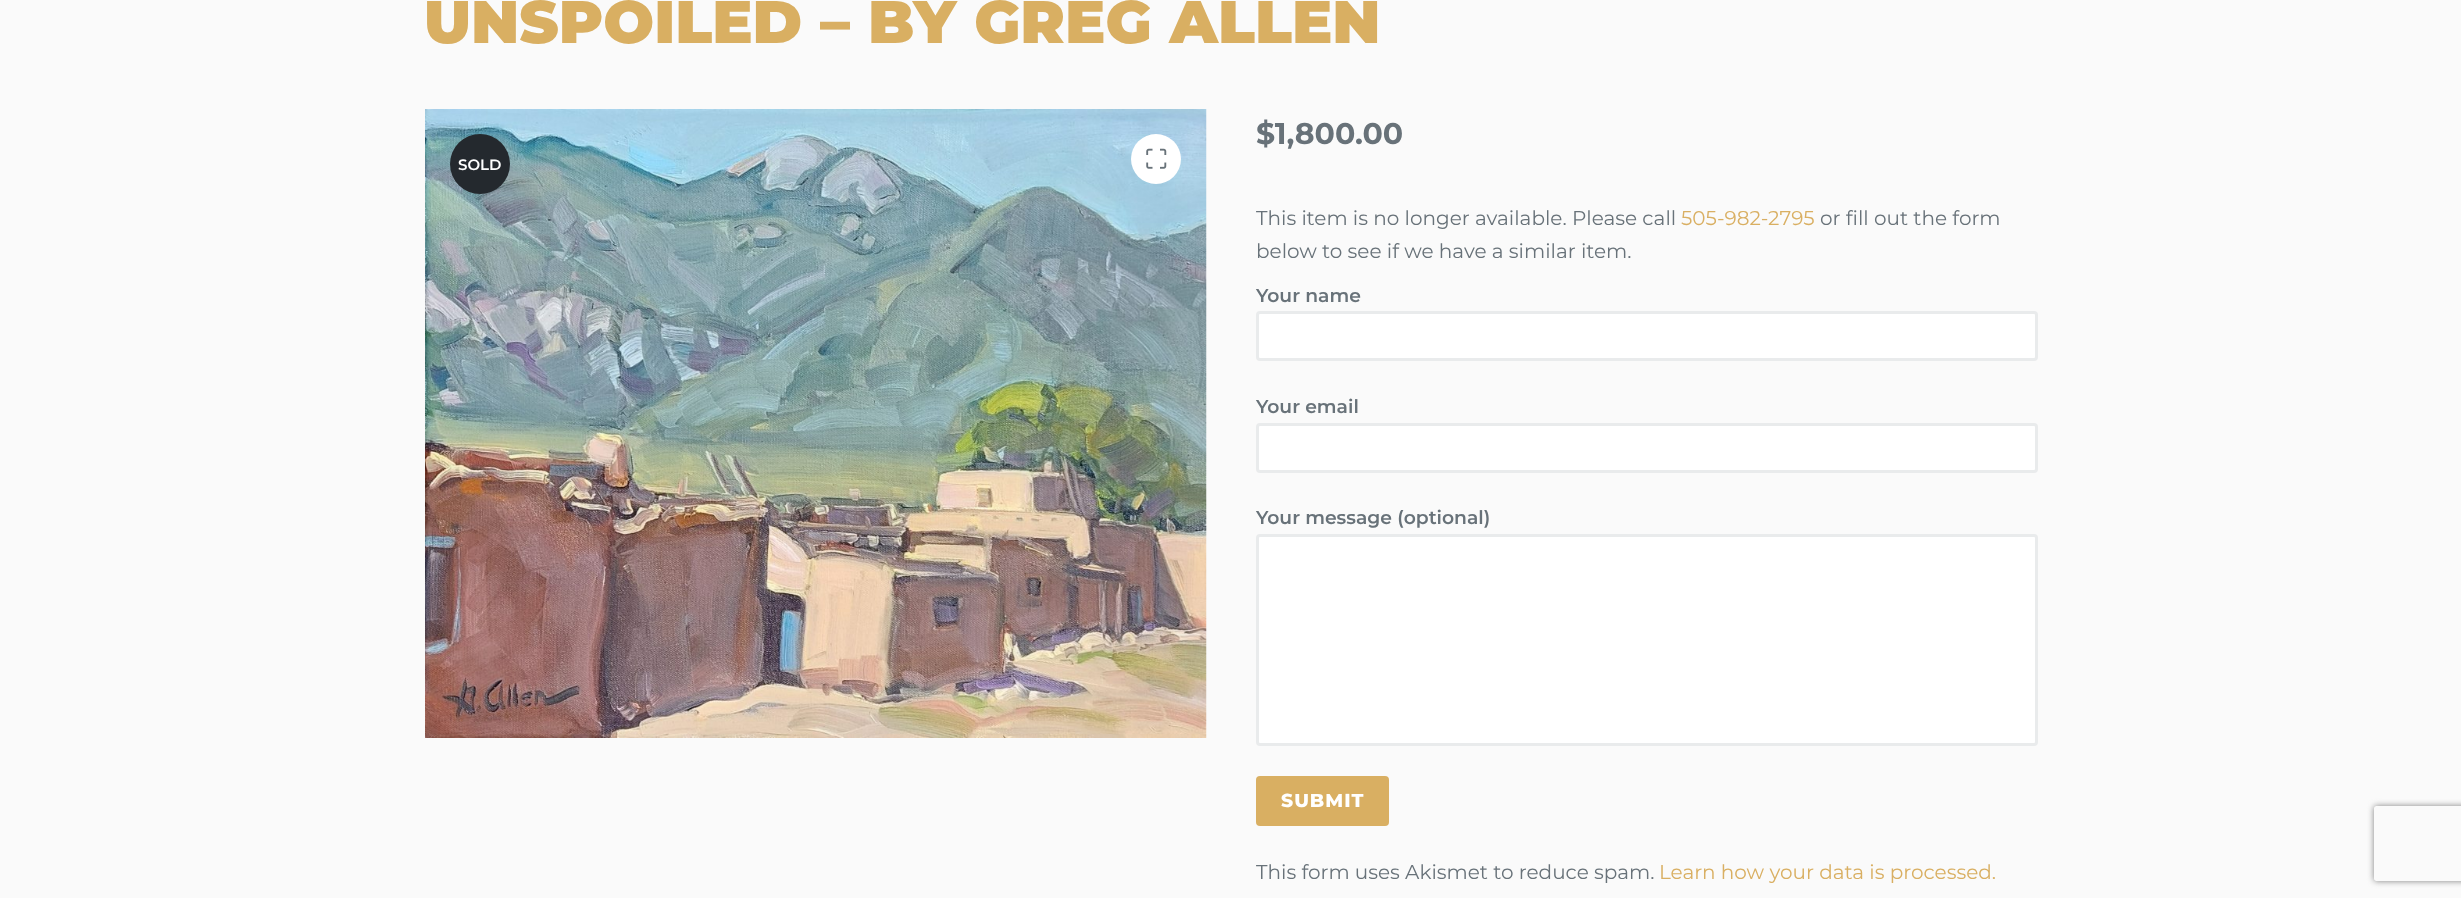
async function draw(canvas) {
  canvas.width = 2461
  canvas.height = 898
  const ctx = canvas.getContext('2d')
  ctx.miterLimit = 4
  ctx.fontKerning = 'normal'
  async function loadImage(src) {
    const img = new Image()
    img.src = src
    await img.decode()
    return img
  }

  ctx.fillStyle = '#fafafa'
  ctx.fillRect(0, 0, 2461, 898)
  ctx.font = '900 60px Montserrat'
  ctx.fillStyle = '#d9af62'
  ctx.fillText('UNSPOILED – BY GREG ALLEN', 424, 43)
  ctx.drawImage(await loadImage('image0.png'), 425, 109, 782, 629)
  ctx.fillStyle = '#24292e'
  ctx.beginPath()
  ctx.arc(480, 164, 30, 0, 2 * Math.PI)
  ctx.fill()
  ctx.font = '600 15px Montserrat'
  ctx.fillStyle = '#fff'
  ctx.fillText('SOLD', 458, 170)
  ctx.beginPath()
  ctx.arc(1156, 159, 25, 0, 2 * Math.PI)
  ctx.fill()
  ctx.drawImage(await loadImage('image1.png'), 1146, 148, 21, 21)
  ctx.font = 'bold 30px Montserrat'
  ctx.fillStyle = '#687279'
  ctx.fillText('$1,800.00', 1256, 144)
  ctx.font = '20px Montserrat'
  ctx.fillText('This item is no longer available. Please call', 1256, 225)
  ctx.fillStyle = '#d9af62'
  ctx.fillText('505-982-2795', 1681, 225)
  ctx.fillStyle = '#687279'
  ctx.fillText('or fill out the form', 1820, 225)
  ctx.fillText('below to see if we have a similar item.', 1256, 258)
  ctx.font = '600 18.75px Montserrat'
  ctx.fillText('Your name', 1256, 302)
  ctx.fillStyle = '#fff'
  ctx.beginPath()
  ctx.roundRect(1257.5, 312.5, 779, 47, 2.5)
  ctx.fill()
  ctx.strokeStyle = '#e9ebec'
  ctx.lineWidth = 3
  ctx.stroke()
  ctx.fillStyle = '#687279'
  ctx.fillText('Your email', 1256, 413)
  ctx.fillStyle = '#fff'
  ctx.beginPath()
  ctx.roundRect(1257.5, 424.5, 779, 47, 2.5)
  ctx.fill()
  ctx.stroke()
  ctx.fillStyle = '#687279'
  ctx.fillText('Your message (optional)', 1256, 524)
  ctx.fillStyle = '#fff'
  ctx.beginPath()
  ctx.roundRect(1257.5, 535.5, 779, 209, 2.5)
  ctx.fill()
  ctx.stroke()
  ctx.fillStyle = '#d9af62'
  ctx.beginPath()
  ctx.roundRect(1256, 776, 133, 50, 4)
  ctx.fill()
  ctx.letterSpacing = '1px'
  ctx.font = '800 18.75px Montserrat'
  ctx.fillStyle = '#fff'
  ctx.fillText('SUBMIT', 1281, 807)
  ctx.letterSpacing = '0px'
  ctx.font = '20px Montserrat'
  ctx.fillStyle = '#687279'
  ctx.fillText('This form uses Akismet to reduce spam.', 1256, 879)
  ctx.fillStyle = '#d9af62'
  ctx.fillText('Learn how your data is processed.', 1659, 879)
  ctx.save()
  ctx.beginPath()
  ctx.moveTo(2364, 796)
  ctx.lineTo(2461, 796)
  ctx.lineTo(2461, 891)
  ctx.lineTo(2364, 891)
  ctx.closePath()
  ctx.moveTo(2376.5, 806)
  ctx.lineTo(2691.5, 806)
  ctx.bezierCurveTo(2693, 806, 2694, 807, 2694, 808.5)
  ctx.lineTo(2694, 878.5)
  ctx.bezierCurveTo(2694, 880, 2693, 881, 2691.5, 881)
  ctx.lineTo(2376.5, 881)
  ctx.bezierCurveTo(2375, 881, 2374, 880, 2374, 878.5)
  ctx.lineTo(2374, 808.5)
  ctx.bezierCurveTo(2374, 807, 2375, 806, 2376.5, 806)
  ctx.closePath()
  ctx.clip('evenodd')
  ctx.fillStyle = '#808080'
  ctx.filter = 'blur(3px)'
  ctx.beginPath()
  ctx.roundRect(2374, 806, 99, 75, 2.5)
  ctx.fill()
  ctx.filter = 'none'
  ctx.restore()
}

draw(document.querySelector('canvas'))
